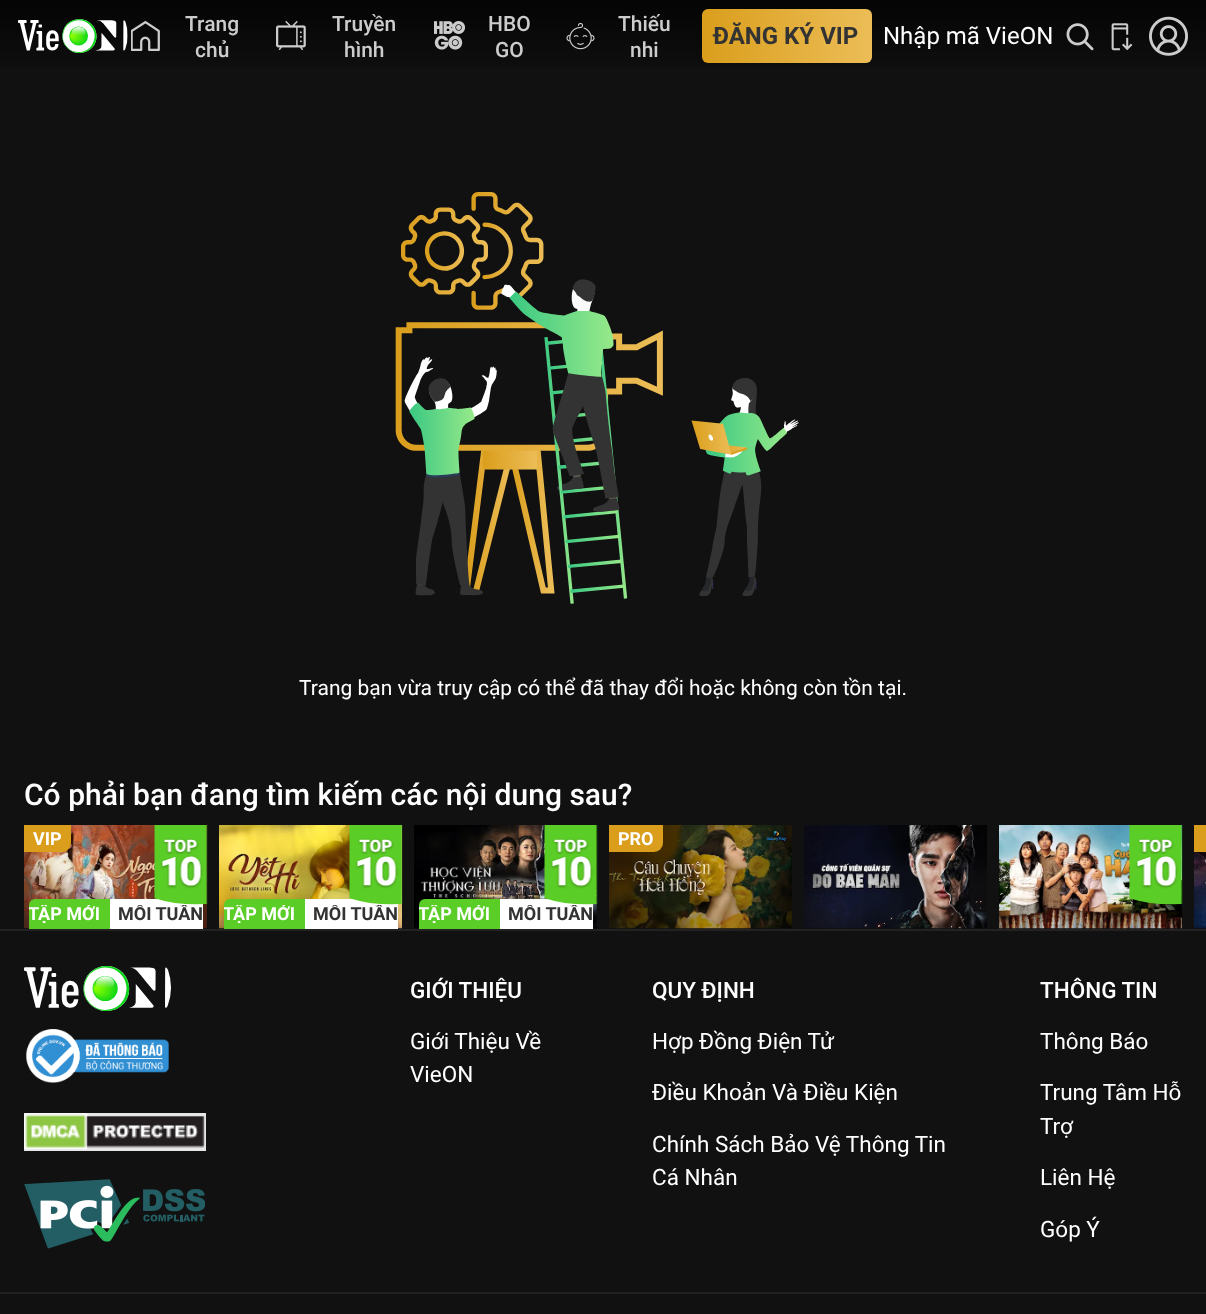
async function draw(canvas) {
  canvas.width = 1206
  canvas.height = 1314
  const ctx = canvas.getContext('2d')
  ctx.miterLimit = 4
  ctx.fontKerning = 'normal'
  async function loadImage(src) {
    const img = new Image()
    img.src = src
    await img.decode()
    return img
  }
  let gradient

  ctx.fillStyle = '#111'
  ctx.fillRect(0, 0, 1206, 1314)
  gradient = ctx.createLinearGradient(603, 84, 603, 0)
  gradient.addColorStop(0, '#111')
  gradient.addColorStop(1, '#040404')
  ctx.fillStyle = gradient
  ctx.fillRect(0, 0, 1206, 68)
  ctx.drawImage(await loadImage('image0.png'), 18, 19, 110, 34)
  ctx.drawImage(await loadImage('image1.png'), 131, 21, 29, 30)
  ctx.font = '500 21px Roboto'
  ctx.fillStyle = '#ccc'
  ctx.fillText('Trang', 185, 31)
  ctx.fillText('chủ', 195, 57)
  ctx.drawImage(await loadImage('image2.png'), 276, 21, 30, 29)
  ctx.fillText('Truyền', 332, 31)
  ctx.fillText('hình', 344, 57)
  ctx.drawImage(await loadImage('image3.png'), 434, 21, 31, 29)
  ctx.fillText('HBO', 488, 31)
  ctx.fillText('GO', 495, 57)
  ctx.drawImage(await loadImage('image4.png'), 566, 22, 29, 28)
  ctx.fillText('Thiếu', 618, 31)
  ctx.fillText('nhi', 630, 57)
  gradient = ctx.createLinearGradient(702, 36, 872, 36)
  gradient.addColorStop(0, '#da9e1c')
  gradient.addColorStop(1, '#ecbd57')
  ctx.fillStyle = gradient
  ctx.beginPath()
  ctx.roundRect(702, 9, 170, 54, 6)
  ctx.fill()
  ctx.font = 'bold 24px Roboto'
  ctx.fillStyle = '#333'
  ctx.fillText('ĐĂNG KÝ VIP', 713, 44)
  ctx.font = '24px Roboto'
  ctx.fillStyle = '#fff'
  ctx.fillText('Nhập mã VieON', 883, 44)
  ctx.drawImage(await loadImage('image5.png'), 1066, 23, 28, 28)
  ctx.drawImage(await loadImage('image6.png'), 1111, 23, 22, 28)
  ctx.drawImage(await loadImage('image7.png'), 1149, 16, 39, 40)
  ctx.drawImage(await loadImage('image8.png'), 395, 192, 404, 412)
  ctx.font = '21px Roboto'
  ctx.fillText('Trang bạn vừa truy cập có thể đã thay đổi hoặc không còn tồn tại.', 299, 695)
  ctx.font = '500 30px Roboto'
  ctx.fillText('Có phải bạn đang tìm kiếm các nội dung sau?', 24, 805)
  ctx.drawImage(await loadImage('image9.png'), 24, 825, 183, 104)
  ctx.fillStyle = '#da9e1c'
  ctx.beginPath()
  ctx.roundRect(24, 825, 47, 27, [0, 0, 9, 0])
  ctx.fill()
  ctx.font = 'bold 18px Roboto'
  ctx.fillStyle = '#fff'
  ctx.fillText('VIP', 33, 845)
  ctx.fillRect(110, 899, 93, 30)
  ctx.drawImage(await loadImage('image10.png'), 154, 825, 54, 80)
  ctx.fillStyle = '#5bcd27'
  ctx.beginPath()
  ctx.roundRect(29, 899, 81, 30, [6, 0, 0, 0])
  ctx.fill()
  ctx.save()
  ctx.beginPath()
  ctx.rect(29, 905, 72, 18)
  ctx.clip()
  ctx.fillStyle = '#fff'
  ctx.fillText('TẬP MỚI', 28, 920)
  ctx.restore()
  ctx.save()
  ctx.beginPath()
  ctx.rect(119, 905, 84, 18)
  ctx.clip()
  ctx.fillStyle = '#333'
  ctx.fillText('MỖI TUẦN', 118, 920)
  ctx.restore()
  ctx.drawImage(await loadImage('image11.png'), 609, 825, 183, 104)
  ctx.fillStyle = '#da9e1c'
  ctx.beginPath()
  ctx.roundRect(609, 825, 54, 27, [0, 0, 9, 0])
  ctx.fill()
  ctx.fillStyle = '#fff'
  ctx.fillText('PRO', 618, 845)
  ctx.drawImage(await loadImage('image12.png'), 804, 825, 183, 104)
  ctx.drawImage(await loadImage('image13.png'), 999, 825, 183, 104)
  ctx.drawImage(await loadImage('image14.png'), 1129, 825, 54, 80)
  ctx.fillStyle = '#da9e1c'
  ctx.fillRect(1194, 825, 12, 27)
  ctx.drawImage(await loadImage('image15.png'), 1194, 852, 12, 77)
  ctx.drawImage(await loadImage('image16.png'), 219, 825, 183, 104)
  ctx.fillStyle = '#fff'
  ctx.fillRect(305, 899, 93, 30)
  ctx.drawImage(await loadImage('image17.png'), 349, 825, 54, 80)
  ctx.fillStyle = '#5bcd27'
  ctx.beginPath()
  ctx.roundRect(224, 899, 81, 30, [6, 0, 0, 0])
  ctx.fill()
  ctx.save()
  ctx.beginPath()
  ctx.rect(224, 905, 72, 18)
  ctx.clip()
  ctx.fillStyle = '#fff'
  ctx.fillText('TẬP MỚI', 223, 920)
  ctx.restore()
  ctx.save()
  ctx.beginPath()
  ctx.rect(314, 905, 84, 18)
  ctx.clip()
  ctx.fillStyle = '#333'
  ctx.fillText('MỖI TUẦN', 313, 920)
  ctx.restore()
  ctx.drawImage(await loadImage('image18.png'), 414, 825, 183, 104)
  ctx.fillStyle = '#fff'
  ctx.fillRect(500, 899, 93, 30)
  ctx.drawImage(await loadImage('image19.png'), 544, 825, 54, 80)
  ctx.fillStyle = '#5bcd27'
  ctx.beginPath()
  ctx.roundRect(419, 899, 81, 30, [6, 0, 0, 0])
  ctx.fill()
  ctx.save()
  ctx.beginPath()
  ctx.rect(419, 905, 72, 18)
  ctx.clip()
  ctx.fillStyle = '#fff'
  ctx.fillText('TẬP MỚI', 418, 920)
  ctx.restore()
  ctx.save()
  ctx.beginPath()
  ctx.rect(509, 905, 84, 18)
  ctx.clip()
  ctx.fillStyle = '#333'
  ctx.fillText('MỖI TUẦN', 508, 920)
  ctx.restore()
  ctx.fillStyle = '#222'
  ctx.fillRect(0, 929, 1206, 2)
  ctx.drawImage(await loadImage('image20.png'), 24, 966, 147, 45)
  ctx.drawImage(await loadImage('image21.png'), 26, 1029, 143, 54)
  ctx.fillStyle = '#e6e6e6'
  ctx.fillRect(24, 1113, 182, 38)
  ctx.drawImage(await loadImage('image22.png'), 24, 1113, 181, 37)
  ctx.drawImage(await loadImage('image23.png'), 24, 1179, 181, 70)
  ctx.font = '500 22.5px Roboto'
  ctx.fillStyle = '#fff'
  ctx.fillText('GIỚI THIỆU', 410, 998)
  ctx.font = '22.5px Roboto'
  ctx.fillText('Giới Thiệu Về', 410, 1049)
  ctx.fillText('VieON', 410, 1082)
  ctx.font = '500 22.5px Roboto'
  ctx.fillText('QUY ĐỊNH', 652, 998)
  ctx.font = '22.5px Roboto'
  ctx.fillText('Hợp Đồng Điện Tử', 652, 1049)
  ctx.fillText('Điều Khoản Và Điều Kiện', 652, 1100)
  ctx.fillText('Chính Sách Bảo Vệ Thông Tin', 652, 1152)
  ctx.fillText('Cá Nhân', 652, 1185)
  ctx.font = '500 22.5px Roboto'
  ctx.fillText('THÔNG TIN', 1040, 998)
  ctx.font = '22.5px Roboto'
  ctx.fillText('Thông Báo', 1040, 1049)
  ctx.fillText('Trung Tâm Hỗ', 1040, 1100)
  ctx.fillText('Trợ', 1040, 1134)
  ctx.fillText('Liên Hệ', 1040, 1185)
  ctx.fillText('Góp Ý', 1040, 1237)
  ctx.fillStyle = '#222'
  ctx.fillRect(0, 1292, 1206, 2)
}

draw(document.querySelector('canvas'))
